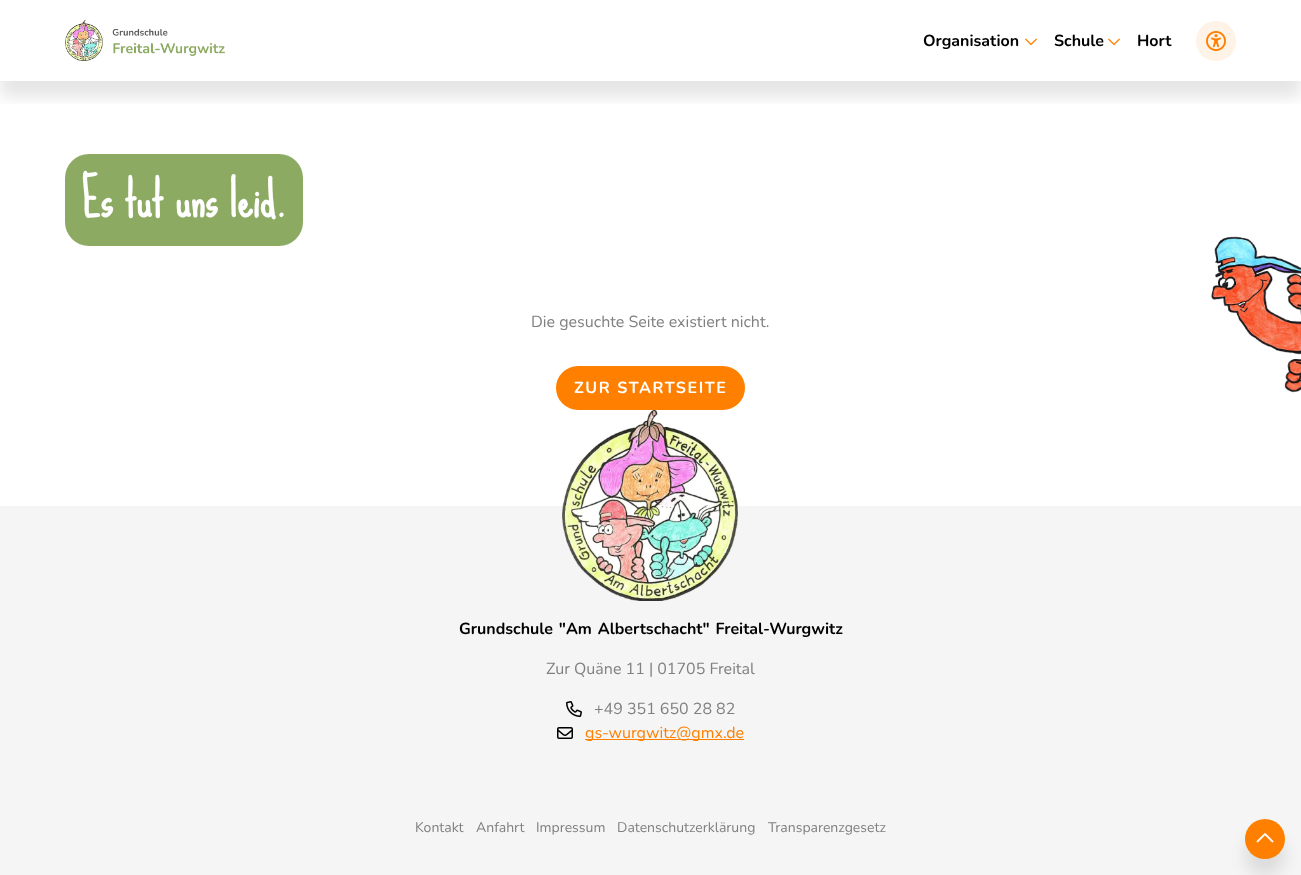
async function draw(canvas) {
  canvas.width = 1301
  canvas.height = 875
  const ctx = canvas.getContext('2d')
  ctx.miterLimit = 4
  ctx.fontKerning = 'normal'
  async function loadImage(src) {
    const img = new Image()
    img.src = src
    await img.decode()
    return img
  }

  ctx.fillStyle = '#fff'
  ctx.fillRect(0, 0, 1301, 875)
  ctx.save()
  ctx.beginPath()
  ctx.rect(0, 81, 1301, 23)
  ctx.clip()
  ctx.fillStyle = '#0000001a'
  ctx.filter = 'blur(8px)'
  ctx.beginPath()
  ctx.rect(0, 16, 1301, 81)
  ctx.fill()
  ctx.filter = 'none'
  ctx.restore()
  ctx.drawImage(await loadImage('image0.png'), 65, 20, 160, 41)
  ctx.font = '200 16px "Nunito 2"'
  ctx.fillStyle = '#000'
  ctx.fillText('Organisation', 923, 46)
  ctx.drawImage(await loadImage('image1.png'), 1025, 38, 12, 8)
  ctx.fillText('Schule', 1054, 46)
  ctx.drawImage(await loadImage('image1.png'), 1108, 38, 12, 8)
  ctx.fillText('Hort', 1137, 46)
  ctx.fillStyle = '#fff2e6'
  ctx.beginPath()
  ctx.arc(1216, 41, 20, 0, 2 * Math.PI)
  ctx.fill()
  ctx.drawImage(await loadImage('image2.png'), 1206, 31, 20, 20)
  ctx.fillStyle = '#8caa62'
  ctx.beginPath()
  ctx.roundRect(65, 154, 238, 92, 24)
  ctx.fill()
  ctx.font = 'bold 48px Sue Ellen Francisco'
  ctx.fillStyle = '#fff'
  ctx.fillText('Es tut uns leid.', 81, 217)
  ctx.font = '200 16px Nunito'
  ctx.fillStyle = '#808080'
  ctx.fillText('Die gesuchte Seite existiert nicht.', 531, 327)
  ctx.fillStyle = '#ff8000'
  ctx.beginPath()
  ctx.roundRect(556, 366, 189, 44, 22)
  ctx.fill()
  ctx.letterSpacing = '1.6px'
  ctx.font = '200 16px "Nunito 2"'
  ctx.fillStyle = '#fff'
  ctx.fillText('ZUR STARTSEITE', 574, 393)
  ctx.drawImage(await loadImage('image3.png'), 1211, 236, 90, 157)
  ctx.fillStyle = '#f5f5f5'
  ctx.fillRect(0, 506, 1301, 369)
  ctx.drawImage(await loadImage('image4.png'), 562, 410, 176, 191)
  ctx.letterSpacing = '0px'
  ctx.wordSpacing = '1.5px'
  ctx.fillStyle = '#000'
  ctx.fillText('Grundschule "Am Albertschacht" Freital-Wurgwitz', 459, 634)
  ctx.wordSpacing = '0px'
  ctx.font = '200 16px Nunito'
  ctx.fillStyle = '#808080'
  ctx.fillText('Zur Quäne 11 | 01705 Freital', 546, 674)
  ctx.drawImage(await loadImage('image5.png'), 566, 701, 16, 16)
  ctx.fillText('+49 351 650 28 82', 594, 714)
  ctx.drawImage(await loadImage('image6.png'), 557, 727, 16, 12)
  ctx.fillStyle = '#ff8000'
  ctx.fillRect(585, 739, 159, 1)
  ctx.fillText('gs-wurgwitz@gmx.de', 585, 738)
  ctx.font = '200 14px Nunito'
  ctx.fillStyle = '#808080'
  ctx.fillText('Kontakt', 415, 832)
  ctx.fillText('Anfahrt', 476, 832)
  ctx.fillText('Impressum', 536, 832)
  ctx.fillText('Datenschutzerklärung', 617, 832)
  ctx.fillText('Transparenzgesetz', 768, 832)
  ctx.fillStyle = '#0000001a'
  ctx.filter = 'blur(8px)'
  ctx.beginPath()
  ctx.roundRect(1245, 835, 40, 40, 20)
  ctx.fill()
  ctx.filter = 'none'
  ctx.fillStyle = '#ff8000'
  ctx.beginPath()
  ctx.arc(1265, 839, 20, 0, 2 * Math.PI)
  ctx.fill()
  ctx.drawImage(await loadImage('image7.png'), 1256, 833, 18, 10)
}

draw(document.querySelector('canvas'))
